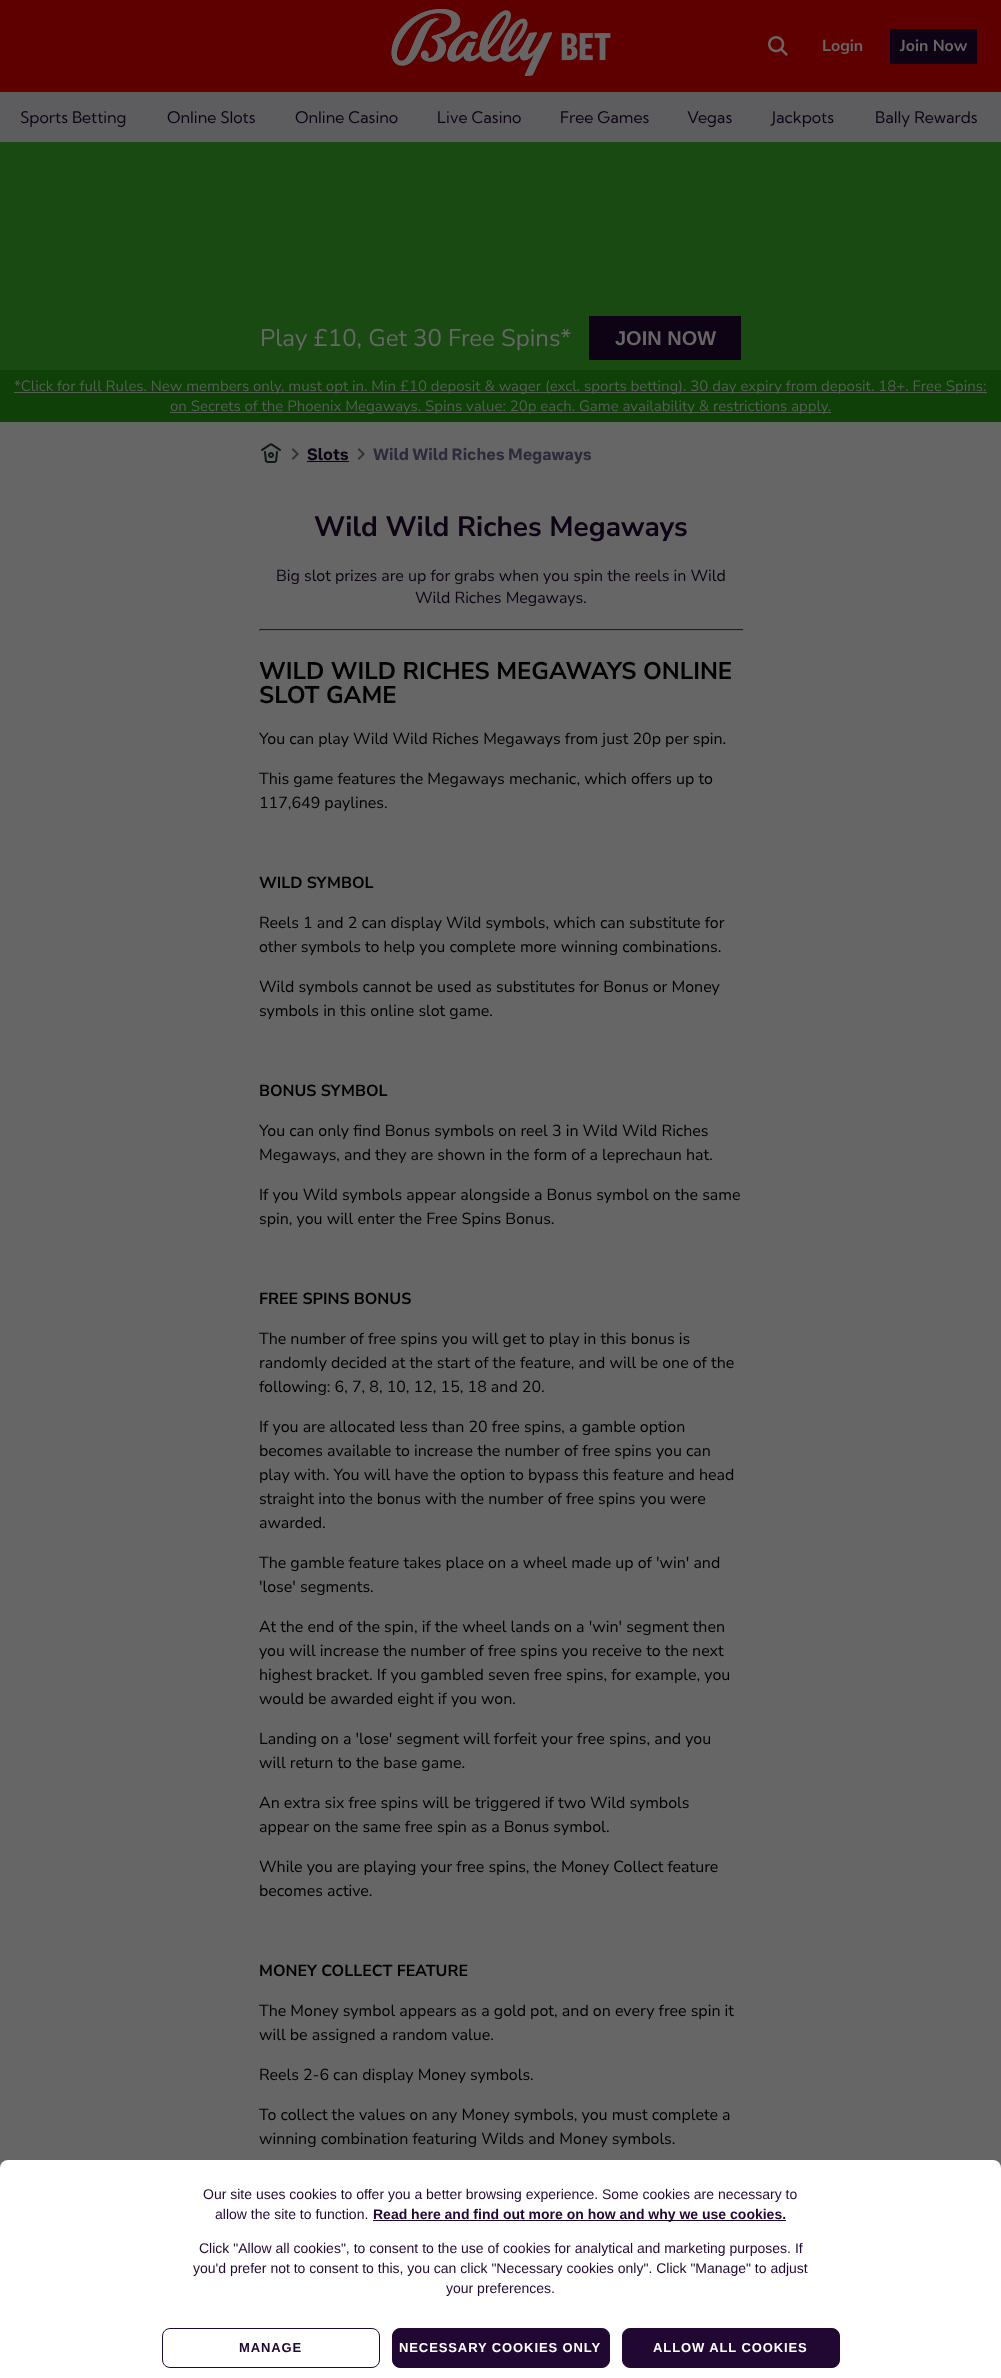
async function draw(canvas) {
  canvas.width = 1001
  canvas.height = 2378
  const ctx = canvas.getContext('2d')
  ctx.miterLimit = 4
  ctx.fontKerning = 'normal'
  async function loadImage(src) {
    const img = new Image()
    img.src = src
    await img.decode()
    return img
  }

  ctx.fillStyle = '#666'
  ctx.fillRect(0, 0, 1001, 2378)
  ctx.fillStyle = '#5e0000'
  ctx.fillRect(0, 0, 1001, 92)
  ctx.drawImage(await loadImage('image0.png'), 391, 9, 220, 67)
  ctx.drawImage(await loadImage('image1.png'), 768, 36, 20, 20)
  ctx.font = 'bold 16px Nunito Sans'
  ctx.fillStyle = '#666'
  ctx.fillText('Login', 822, 51)
  ctx.fillStyle = '#0d0314'
  ctx.fillRect(890, 29, 87, 35)
  ctx.fillStyle = '#666'
  ctx.fillText('Join Now', 900, 51)
  ctx.fillStyle = '#5d5c5e'
  ctx.fillRect(0, 92, 1001, 50)
  ctx.font = '16px Kumbh Sans'
  ctx.fillStyle = '#0d0314'
  ctx.fillText('Sports Betting', 20, 123)
  ctx.fillText('Online Slots', 167, 123)
  ctx.fillText('Online Casino', 295, 123)
  ctx.fillText('Live Casino', 437, 123)
  ctx.fillText('Free Games', 560, 123)
  ctx.fillText('Vegas', 687, 123)
  ctx.fillText('Jackpots', 772, 123)
  ctx.fillText('Bally Rewards', 875, 123)
  ctx.fillStyle = '#194a12'
  ctx.fillRect(0, 142, 1001, 164)
  ctx.fillStyle = '#194a11'
  ctx.fillRect(0, 306, 1001, 64)
  ctx.font = '24px Nunito Sans'
  ctx.fillStyle = '#666'
  ctx.fillText('Play £10, Get 30 Free Spins*', 260, 346)
  ctx.fillStyle = '#0d0314'
  ctx.fillRect(589, 316, 152, 44)
  ctx.font = 'bold 20px Liberation Sans'
  ctx.fillStyle = '#666'
  ctx.fillText('JOIN NOW', 615, 345)
  ctx.fillStyle = '#0e4007'
  ctx.fillRect(0, 370, 1001, 52)
  ctx.fillStyle = '#545e53'
  ctx.fillRect(14, 392, 973, 1)
  ctx.font = '15px Nunito Sans'
  ctx.fillText('*Click for full Rules. New members only, must opt in. Min £10 deposit & wager (excl. sports betting). 30 day expiry from deposit. 18+. Free Spins:', 14, 391)
  ctx.fillRect(170, 412, 661, 1)
  ctx.fillText('on Secrets of the Phoenix Megaways. Spins value: 20p each. Game availability & restrictions apply.', 170, 411)
  ctx.drawImage(await loadImage('image2.png'), 261, 443, 20, 20)
  ctx.drawImage(await loadImage('image3.png'), 291, 448, 8, 12)
  ctx.font = 'bold 16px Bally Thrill'
  ctx.fillStyle = '#0d0314'
  ctx.fillText('Slots', 307, 460)
  ctx.fillRect(307, 461, 42, 1)
  ctx.drawImage(await loadImage('image3.png'), 357, 448, 8, 12)
  ctx.fillStyle = '#2e2a3a'
  ctx.fillText('Wild Wild Riches Megaways', 373, 460)
  ctx.font = 'bold 28px Nunito Sans'
  ctx.fillStyle = '#0d0314'
  ctx.fillText('Wild Wild Riches Megaways', 314, 536)
  ctx.font = '16px Nunito Sans'
  ctx.fillText('Big slot prizes are up for grabs when you spin the reels in Wild', 276, 581)
  ctx.fillText('Wild Riches Megaways.', 415, 603)
  ctx.fillStyle = '#5e0000'
  ctx.fillRect(259, 629, 485, 1)
  ctx.fillStyle = '#5f5f5f'
  ctx.fillRect(743, 629, 1, 2)
  ctx.fillRect(259, 630, 485, 1)
  ctx.fillStyle = '#404040'
  ctx.fillRect(259, 629, 1, 2)
  ctx.font = 'bold 24px Nunito Sans'
  ctx.fillStyle = '#000'
  ctx.fillText('WILD WILD RICHES MEGAWAYS ONLINE', 259, 679)
  ctx.fillText('SLOT GAME', 259, 703)
  ctx.font = '16px Nunito Sans'
  ctx.fillText('You can play Wild Wild Riches Megaways from just 20p per spin.', 259, 744)
  ctx.fillText('This game features the Megaways mechanic, which offers up to', 259, 784)
  ctx.fillText('117,649 paylines.', 259, 808)
  ctx.font = 'bold 16px Nunito Sans'
  ctx.fillText('WILD SYMBOL', 259, 888)
  ctx.font = '16px Nunito Sans'
  ctx.fillText('Reels 1 and 2 can display Wild symbols, which can substitute for', 259, 928)
  ctx.fillText('other symbols to help you complete more winning combinations.', 259, 952)
  ctx.fillText('Wild symbols cannot be used as substitutes for Bonus or Money', 259, 992)
  ctx.fillText('symbols in this online slot game.', 259, 1016)
  ctx.font = 'bold 16px Nunito Sans'
  ctx.fillText('BONUS SYMBOL', 259, 1096)
  ctx.font = '16px Nunito Sans'
  ctx.fillText('You can only find Bonus symbols on reel 3 in Wild Wild Riches', 259, 1136)
  ctx.fillText('Megaways, and they are shown in the form of a leprechaun hat.', 259, 1160)
  ctx.fillText('If you Wild symbols appear alongside a Bonus symbol on the same', 259, 1200)
  ctx.fillText('spin, you will enter the Free Spins Bonus.', 259, 1224)
  ctx.font = 'bold 16px Nunito Sans'
  ctx.fillText('FREE SPINS BONUS', 259, 1304)
  ctx.font = '16px Nunito Sans'
  ctx.fillText('The number of free spins you will get to play in this bonus is', 259, 1344)
  ctx.fillText('randomly decided at the start of the feature, and will be one of the', 259, 1368)
  ctx.fillText('following: 6, 7, 8, 10, 12, 15, 18 and 20.', 259, 1392)
  ctx.fillText('If you are allocated less than 20 free spins, a gamble option', 259, 1432)
  ctx.fillText('becomes available to increase the number of free spins you can', 259, 1456)
  ctx.fillText('play with. You will have the option to bypass this feature and head', 259, 1480)
  ctx.fillText('straight into the bonus with the number of free spins you were', 259, 1504)
  ctx.fillText('awarded.', 259, 1528)
  ctx.fillText('The gamble feature takes place on a wheel made up of \'win\' and', 259, 1568)
  ctx.fillText('\'lose\' segments.', 259, 1592)
  ctx.fillText('At the end of the spin, if the wheel lands on a \'win\' segment then', 259, 1632)
  ctx.fillText('you will increase the number of free spins you receive to the next', 259, 1656)
  ctx.fillText('highest bracket. If you gambled seven free spins, for example, you', 259, 1680)
  ctx.fillText('would be awarded eight if you won.', 259, 1704)
  ctx.fillText('Landing on a \'lose\' segment will forfeit your free spins, and you', 259, 1744)
  ctx.fillText('will return to the base game.', 259, 1768)
  ctx.fillText('An extra six free spins will be triggered if two Wild symbols', 259, 1808)
  ctx.fillText('appear on the same free spin as a Bonus symbol.', 259, 1832)
  ctx.fillText('While you are playing your free spins, the Money Collect feature', 259, 1872)
  ctx.fillText('becomes active.', 259, 1896)
  ctx.font = 'bold 16px Nunito Sans'
  ctx.fillText('MONEY COLLECT FEATURE', 259, 1976)
  ctx.font = '16px Nunito Sans'
  ctx.fillText('The Money symbol appears as a gold pot, and on every free spin it', 259, 2016)
  ctx.fillText('will be assigned a random value.', 259, 2040)
  ctx.fillText('Reels 2-6 can display Money symbols.', 259, 2080)
  ctx.fillText('To collect the values on any Money symbols, you must complete a', 259, 2120)
  ctx.fillText('winning combination featuring Wilds and Money symbols.', 259, 2144)
  ctx.fillStyle = '#fff'
  ctx.beginPath()
  ctx.roundRect(0, 2160, 1001, 218, [8, 8, 0, 0])
  ctx.fill()
  ctx.font = '14px Liberation Sans'
  ctx.fillStyle = '#200833'
  ctx.fillText('Our site uses cookies to offer you a better browsing experience. Some cookies are necessary to', 203, 2199)
  ctx.fillText('allow the site to function.', 215, 2219)
  ctx.fillRect(373, 2220, 413, 1)
  ctx.font = 'bold 14px Liberation Sans'
  ctx.fillText('Read here and find out more on how and why we use cookies.', 373, 2219)
  ctx.font = '14px Liberation Sans'
  ctx.fillText('Click "Allow all cookies", to consent to the use of cookies for analytical and marketing purposes. If', 199, 2253)
  ctx.fillText('you\'d prefer not to consent to this, you can click "Necessary cookies only". Click "Manage" to adjust', 193, 2273)
  ctx.fillText('your preferences.', 446, 2293)
  ctx.beginPath()
  ctx.roundRect(162.5, 2328.5, 217, 39, 7.5)
  ctx.strokeStyle = '#200833'
  ctx.stroke()
  ctx.letterSpacing = '0.9px'
  ctx.font = 'bold 13px Liberation Sans'
  ctx.fillText('MANAGE', 239, 2352)
  ctx.beginPath()
  ctx.roundRect(392.5, 2328.5, 217, 39, 7.5)
  ctx.fill()
  ctx.stroke()
  ctx.fillStyle = '#fff'
  ctx.fillText('NECESSARY COOKIES ONLY', 399, 2352)
  ctx.fillStyle = '#200833'
  ctx.beginPath()
  ctx.roundRect(622.5, 2328.5, 217, 39, 7.5)
  ctx.fill()
  ctx.stroke()
  ctx.fillStyle = '#fff'
  ctx.fillText('ALLOW ALL COOKIES', 653, 2352)
}

draw(document.querySelector('canvas'))
